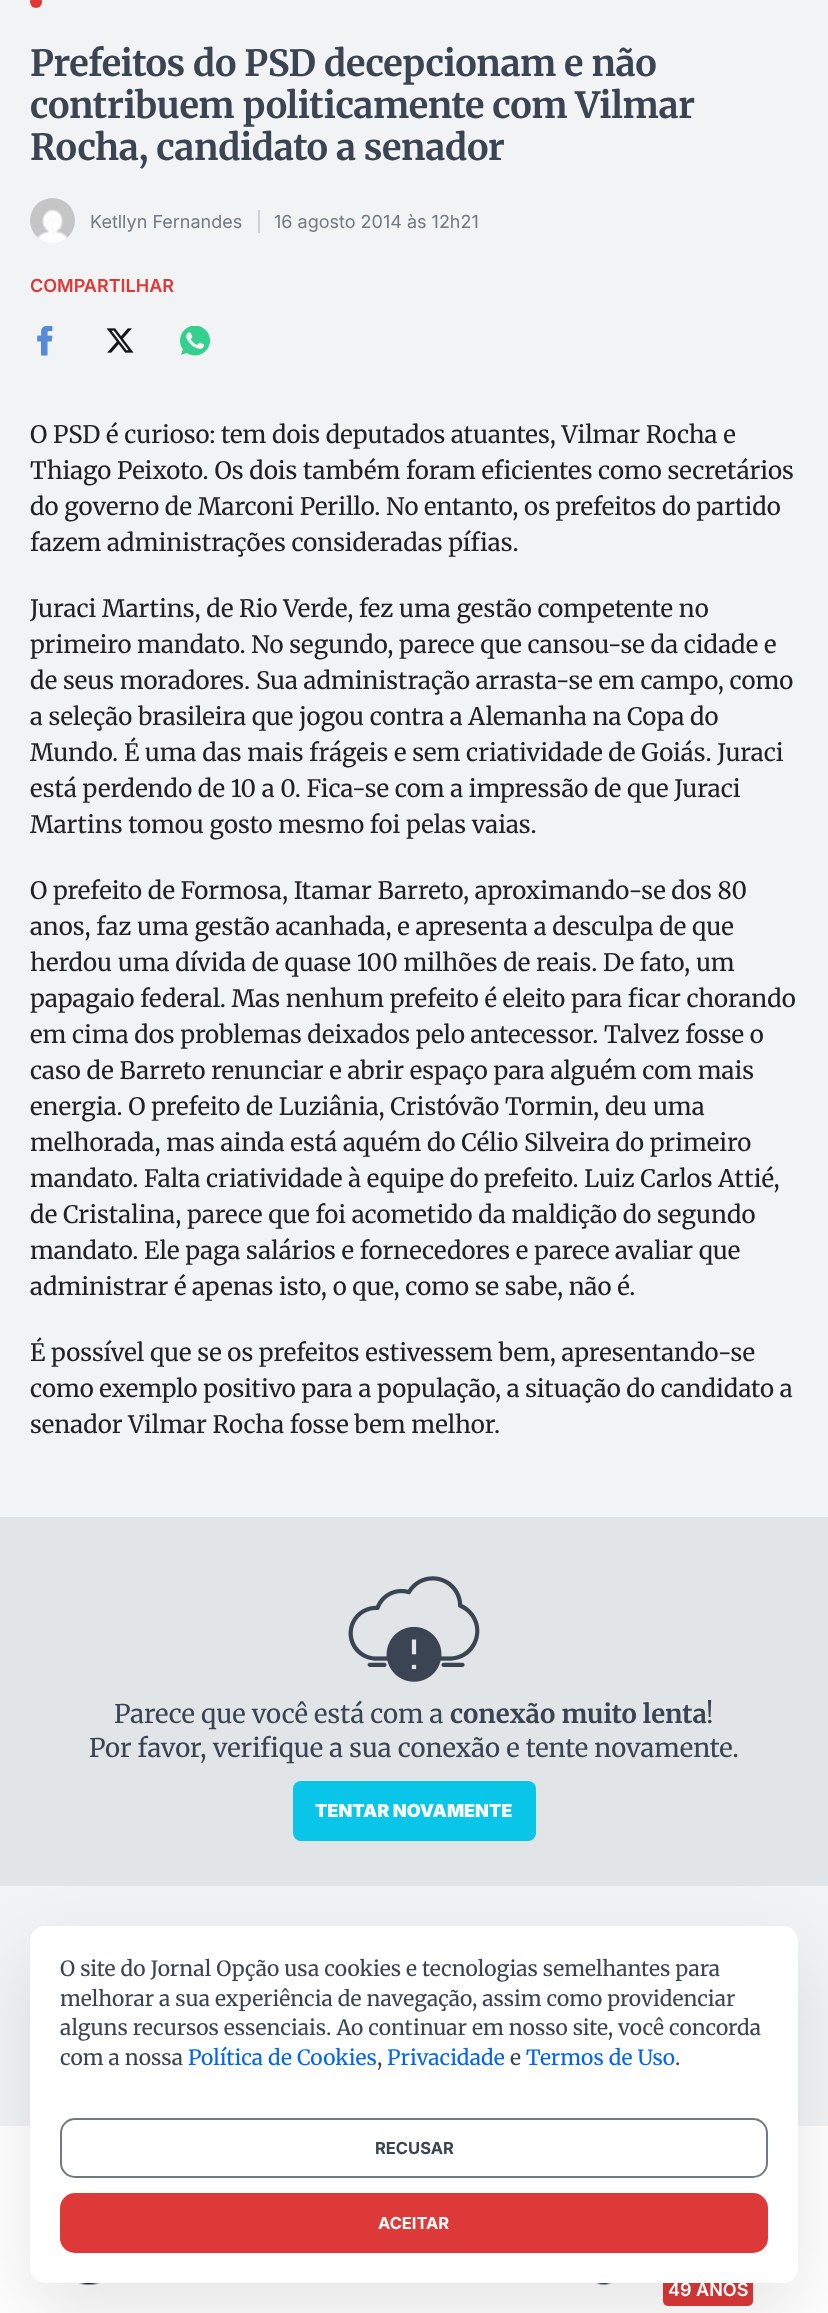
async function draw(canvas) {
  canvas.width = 828
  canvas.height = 2313
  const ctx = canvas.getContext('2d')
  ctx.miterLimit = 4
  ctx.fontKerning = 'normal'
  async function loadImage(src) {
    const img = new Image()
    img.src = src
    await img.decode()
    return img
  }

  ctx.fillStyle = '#f2f3f4'
  ctx.fillRect(0, 0, 828, 2313)
  ctx.fillStyle = '#dd3939'
  ctx.beginPath()
  ctx.arc(36, 2, 6, 0, 2 * Math.PI)
  ctx.fill()
  ctx.letterSpacing = '-0.35px'
  ctx.font = 'bold 36px Merriweather'
  ctx.fillStyle = '#3b4452'
  ctx.fillText('Prefeitos do PSD decepcionam e não', 30, 76)
  ctx.fillText('contribuem politicamente com Vilmar', 30, 118)
  ctx.fillText('Rocha, candidato a senador', 30, 160)
  ctx.drawImage(await loadImage('image0.png'), 30, 198, 45, 45)
  ctx.fillStyle = '#ccd2d5'
  ctx.fillRect(258, 210, 2, 23)
  ctx.letterSpacing = '0px'
  ctx.font = '18px Inter'
  ctx.fillStyle = '#717982'
  ctx.fillText('Ketllyn Fernandes', 90, 228)
  ctx.fillText('16 agosto 2014 às 12h21', 274, 228)
  ctx.font = '600 18px Inter'
  ctx.fillStyle = '#dd3939'
  ctx.fillText('COMPARTILHAR', 30, 292)
  ctx.drawImage(await loadImage('image1.png'), 37, 326, 16, 30)
  ctx.drawImage(await loadImage('image2.png'), 106, 328, 28, 25)
  ctx.drawImage(await loadImage('image3.png'), 180, 326, 30, 30)
  ctx.font = '24px Merriweather'
  ctx.fillStyle = '#222'
  ctx.fillText('O PSD é curioso: tem dois deputados atuantes, Vilmar Rocha e', 30, 443)
  ctx.fillText('Thiago Peixoto. Os dois também foram eficientes como secretários', 30, 479)
  ctx.fillText('do governo de Marconi Perillo. No entanto, os prefeitos do partido', 30, 515)
  ctx.fillText('fazem administrações consideradas pífias.', 30, 551)
  ctx.fillText('Juraci Martins, de Rio Verde, fez uma gestão competente no', 30, 617)
  ctx.fillText('primeiro mandato. No segundo, parece que cansou-se da cidade e', 30, 653)
  ctx.fillText('de seus moradores. Sua administração arrasta-se em campo, como', 30, 689)
  ctx.fillText('a seleção brasileira que jogou contra a Alemanha na Copa do', 30, 725)
  ctx.fillText('Mundo. É uma das mais frágeis e sem criatividade de Goiás. Juraci', 30, 761)
  ctx.fillText('está perdendo de 10 a 0. Fica-se com a impressão de que Juraci', 30, 797)
  ctx.fillText('Martins tomou gosto mesmo foi pelas vaias.', 30, 833)
  ctx.fillText('O prefeito de Formosa, Itamar Barreto, aproximando-se dos 80', 30, 899)
  ctx.fillText('anos, faz uma gestão acanhada, e apresenta a desculpa de que', 30, 935)
  ctx.fillText('herdou uma dívida de quase 100 milhões de reais. De fato, um', 30, 971)
  ctx.fillText('papagaio federal. Mas nenhum prefeito é eleito para ficar chorando', 30, 1007)
  ctx.fillText('em cima dos problemas deixados pelo antecessor. Talvez fosse o', 30, 1043)
  ctx.fillText('caso de Barreto renunciar e abrir espaço para alguém com mais', 30, 1079)
  ctx.fillText('energia. O prefeito de Luziânia, Cristóvão Tormin, deu uma', 30, 1115)
  ctx.fillText('melhorada, mas ainda está aquém do Célio Silveira do primeiro', 30, 1151)
  ctx.fillText('mandato. Falta criatividade à equipe do prefeito. Luiz Carlos Attié,', 30, 1187)
  ctx.fillText('de Cristalina, parece que foi acometido da maldição do segundo', 30, 1223)
  ctx.fillText('mandato. Ele paga salários e fornecedores e parece avaliar que', 30, 1259)
  ctx.fillText('administrar é apenas isto, o que, como se sabe, não é.', 30, 1295)
  ctx.fillText('É possível que se os prefeitos estivessem bem, apresentando-se', 30, 1361)
  ctx.fillText('como exemplo positivo para a população, a situação do candidato a', 30, 1397)
  ctx.fillText('senador Vilmar Rocha fosse bem melhor.', 30, 1433)
  ctx.fillStyle = '#e1e5e7'
  ctx.fillRect(0, 1517, 828, 369)
  ctx.drawImage(await loadImage('image4.png'), 348, 1576, 132, 106)
  ctx.font = '25.7px Merriweather'
  ctx.fillStyle = '#3b4452'
  ctx.fillText('Parece que você está com a', 114, 1723)
  ctx.font = 'bold 25.7px Merriweather'
  ctx.fillText('conexão muito lenta', 450, 1723)
  ctx.font = '25.7px Merriweather'
  ctx.fillText('!', 706, 1723)
  ctx.fillText('Por favor, verifique a sua conexão e tente novamente.', 89, 1757)
  ctx.fillStyle = '#09c5e7'
  ctx.beginPath()
  ctx.roundRect(293, 1781, 243, 60, 8)
  ctx.fill()
  ctx.font = '900 18px Inter'
  ctx.fillStyle = '#fff'
  ctx.fillText('TENTAR NOVAMENTE', 315, 1817)
  ctx.fillRect(0, 2126, 828, 187)
  ctx.drawImage(await loadImage('image5.png'), 78, 2283, 534, 2)
  ctx.fillStyle = '#dd3939'
  ctx.beginPath()
  ctx.roundRect(663, 2274, 90, 32, 5)
  ctx.fill()
  ctx.fillStyle = '#0000001a'
  ctx.filter = 'blur(37.5px)'
  ctx.beginPath()
  ctx.roundRect(30, 1956, 768, 357, 15)
  ctx.fill()
  ctx.filter = 'none'
  ctx.fillStyle = '#fff'
  ctx.beginPath()
  ctx.roundRect(30, 1926, 768, 357, 15)
  ctx.fill()
  ctx.font = '21px Merriweather'
  ctx.fillStyle = '#3b4452'
  ctx.fillText('O site do Jornal Opção usa cookies e tecnologias semelhantes para', 60, 1976)
  ctx.fillText('melhorar a sua experiência de navegação, assim como providenciar', 60, 2006)
  ctx.fillText('alguns recursos essenciais. Ao continuar em nosso site, você concorda', 60, 2035)
  ctx.fillText('com a nossa', 60, 2065)
  ctx.fillStyle = '#0465e7'
  ctx.fillText('Política de Cookies', 188, 2065)
  ctx.fillStyle = '#3b4452'
  ctx.fillText(',', 377, 2065)
  ctx.fillStyle = '#0465e7'
  ctx.fillText('Privacidade', 387, 2065)
  ctx.fillStyle = '#3b4452'
  ctx.fillText('e', 510, 2065)
  ctx.fillStyle = '#0465e7'
  ctx.fillText('Termos de Uso', 526, 2065)
  ctx.fillStyle = '#3b4452'
  ctx.fillText('.', 675, 2065)
  ctx.beginPath()
  ctx.roundRect(61, 2119, 706, 58, 14)
  ctx.strokeStyle = '#717982'
  ctx.lineWidth = 2
  ctx.stroke()
  ctx.font = 'bold 16.5px Inter'
  ctx.fillText('RECUSAR', 375, 2154)
  ctx.fillStyle = '#dd3939'
  ctx.beginPath()
  ctx.roundRect(60, 2193, 708, 60, 15)
  ctx.fill()
  ctx.fillStyle = '#fff'
  ctx.fillText('ACEITAR', 378, 2229)
  ctx.font = '600 18px Inter'
  ctx.fillText('49 ANOS', 668, 2296)
}

draw(document.querySelector('canvas'))
